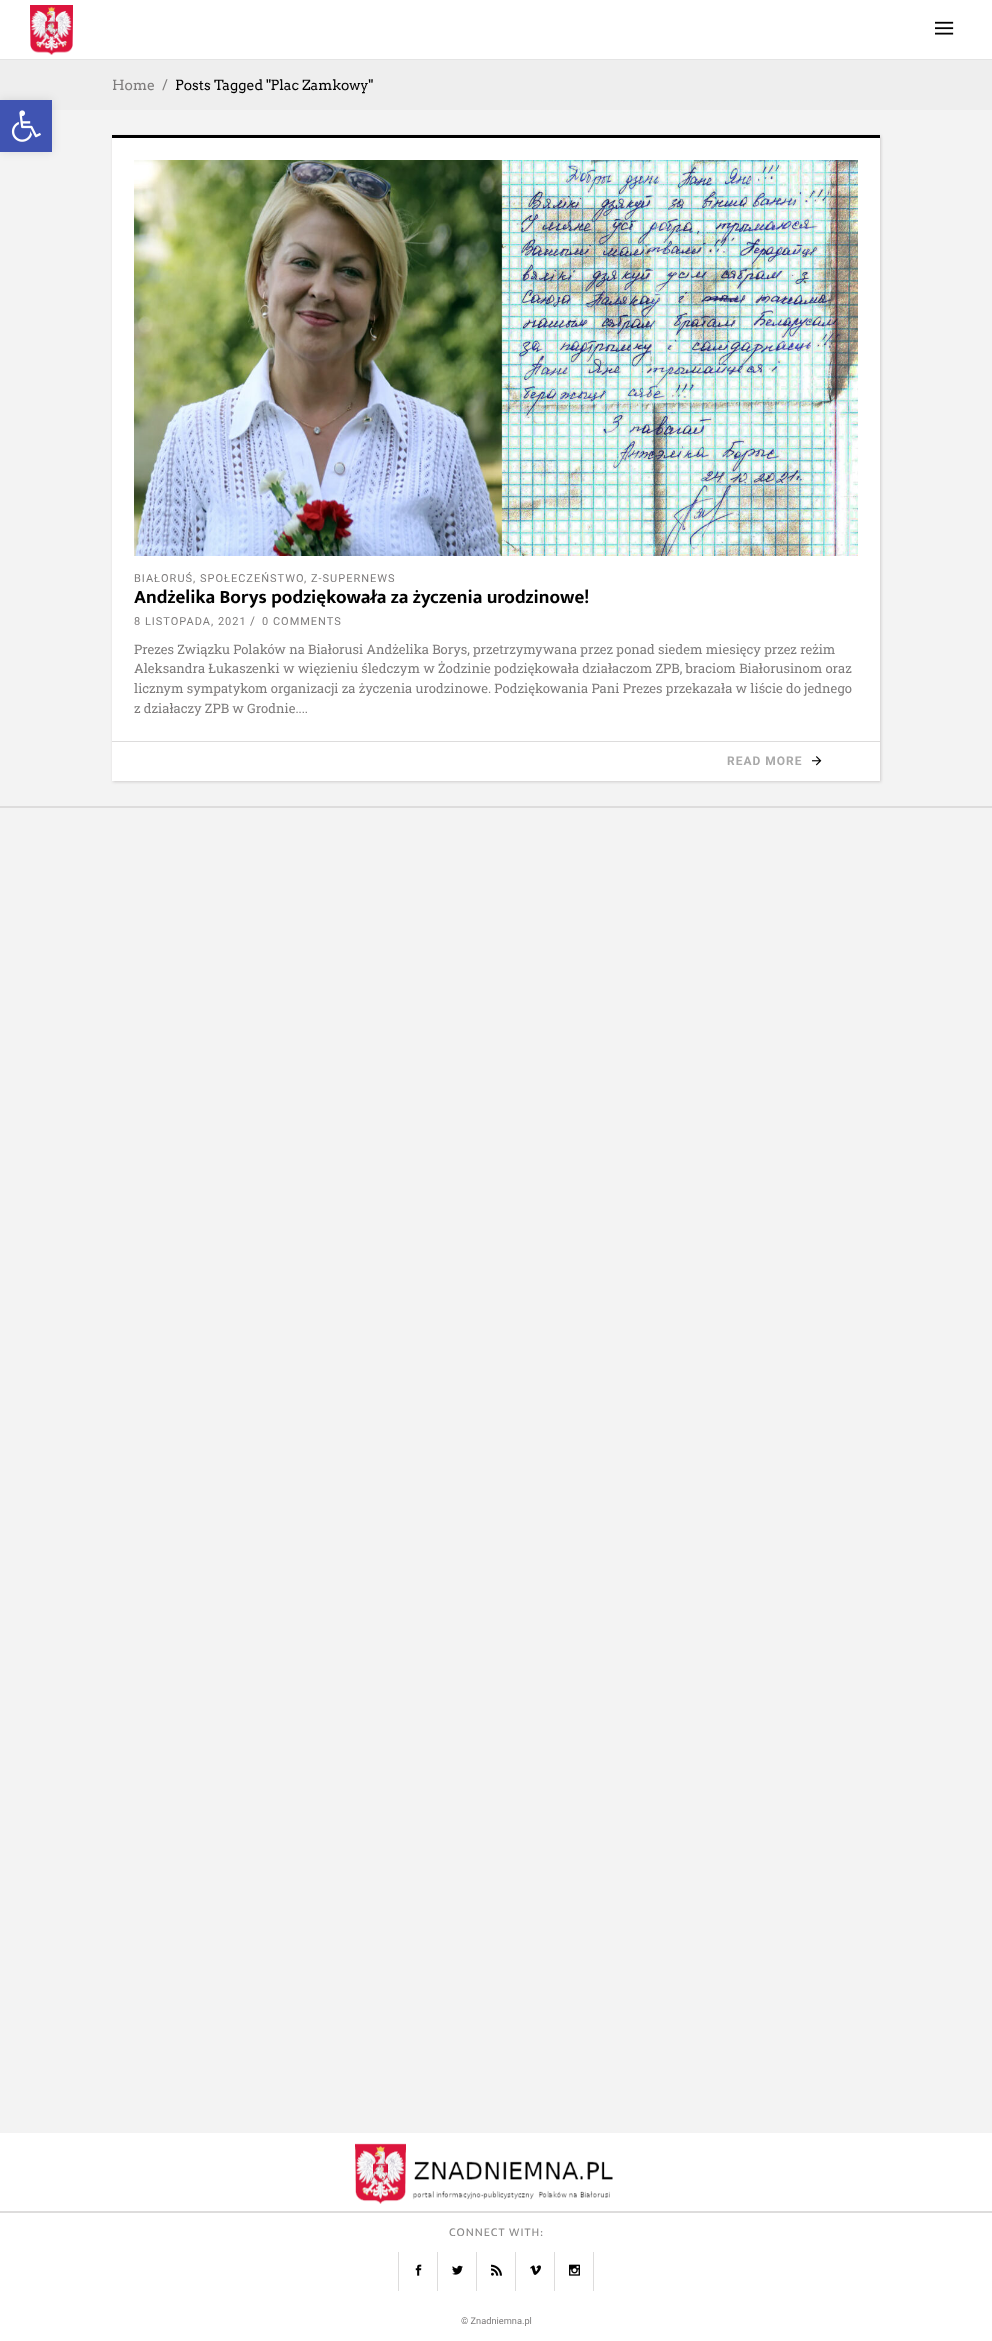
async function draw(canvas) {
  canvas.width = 992
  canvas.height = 2341
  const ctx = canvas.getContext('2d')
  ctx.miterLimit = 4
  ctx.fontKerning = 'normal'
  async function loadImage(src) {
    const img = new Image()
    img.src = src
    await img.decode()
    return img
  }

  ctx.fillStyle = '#f3f3f3'
  ctx.fillRect(0, 0, 992, 2341)
  ctx.fillStyle = '#eee'
  ctx.fillRect(0, 60, 992, 50)
  ctx.fillStyle = '#0000001a'
  ctx.filter = 'blur(5px)'
  ctx.beginPath()
  ctx.rect(0, 100, 52, 52)
  ctx.fill()
  ctx.filter = 'none'
  ctx.fillStyle = '#4054b2'
  ctx.fillRect(0, 100, 52, 52)
  ctx.drawImage(await loadImage('image0.png'), 11, 110, 30, 32)
  ctx.fillStyle = '#dddcdc'
  ctx.fillRect(0, 806, 992, 2)
  ctx.fillStyle = '#fff'
  ctx.fillRect(0, 0, 992, 59)
  ctx.fillStyle = '#e4e4e4'
  ctx.fillRect(0, 59, 992, 1)
  ctx.drawImage(await loadImage('image1.png'), 30, 5, 43, 50)
  ctx.drawImage(await loadImage('image2.png'), 935, 21, 19, 14)
  ctx.font = '14px Arvo'
  ctx.fillStyle = '#7e7c7c'
  ctx.fillText('Home', 112, 90)
  ctx.fillText('/', 162, 90)
  ctx.fillStyle = '#020202'
  ctx.fillText('Posts Tagged "Plac Zamkowy"', 175, 90)
  ctx.fillStyle = '#cecccc'
  ctx.filter = 'blur(1.5px)'
  ctx.beginPath()
  ctx.rect(113, 136, 768, 646)
  ctx.fill()
  ctx.filter = 'none'
  ctx.fillStyle = '#fff'
  ctx.fillRect(112, 138, 768, 643)
  ctx.fillStyle = '#000'
  ctx.fillRect(112, 135, 768, 3)
  ctx.drawImage(await loadImage('image3.png'), 134, 160, 724, 396)
  ctx.letterSpacing = '1px'
  ctx.font = '11px Roboto'
  ctx.fillStyle = '#7e7c7c'
  ctx.fillText('BIAŁORUŚ, SPOŁECZEŃSTWO', 134, 582)
  ctx.fillText(', Z-SUPERNEWS', 304, 582)
  ctx.letterSpacing = '0px'
  ctx.font = 'bold 19px Ek Mukta'
  ctx.fillStyle = '#020202'
  ctx.fillText('Andżelika Borys podziękowała za życzenia urodzinowe!', 134, 603)
  ctx.letterSpacing = '1px'
  ctx.font = '11px Roboto'
  ctx.fillStyle = '#7e7c7c'
  ctx.fillText('8 LISTOPADA, 2021', 134, 625)
  ctx.font = '12px Roboto'
  ctx.fillText('/', 250, 625)
  ctx.font = '11px Roboto'
  ctx.fillText('0 COMMENTS', 262, 625)
  ctx.letterSpacing = '0px'
  ctx.font = '13px Roboto Slab'
  ctx.fillText('Prezes Związku Polaków na Białorusi Andżelika Borys, przetrzymywana przez ponad siedem miesięcy przez reżim', 134, 654)
  ctx.fillText('Aleksandra Łukaszenki w więzieniu śledczym w Żodzinie podziękowała działaczom ZPB, braciom Białorusinom oraz', 134, 673)
  ctx.fillText('licznym sympatykom organizacji za życzenia urodzinowe. Podziękowania Pani Prezes przekazała w liście do jednego', 134, 693)
  ctx.fillText('z działaczy ZPB w Grodnie....', 134, 713)
  ctx.fillStyle = '#dddcdc'
  ctx.fillRect(112, 741, 768, 1)
  ctx.letterSpacing = '1px'
  ctx.font = 'bold 12px Roboto'
  ctx.fillStyle = '#a9a9a9'
  ctx.fillText('READ MORE', 727, 765)
  ctx.drawImage(await loadImage('image4.png'), 812, 756, 10, 10)
  ctx.fillStyle = '#fff'
  ctx.fillRect(0, 2133, 992, 78)
  ctx.fillStyle = '#dddcdc'
  ctx.fillRect(0, 2211, 992, 2)
  ctx.drawImage(await loadImage('image5.png'), 355, 2143, 258, 61)
  ctx.fillStyle = '#fff'
  ctx.fillRect(0, 2213, 992, 128)
  ctx.font = '12px Ek Mukta'
  ctx.fillStyle = '#8b8a8a'
  ctx.fillText('CONNECT WITH:', 449, 2236)
  ctx.fillStyle = '#dddcdc'
  ctx.fillRect(398, 2252, 1, 39)
  ctx.drawImage(await loadImage('image6.png'), 415, 2264, 7, 12)
  ctx.fillRect(437, 2252, 1, 39)
  ctx.drawImage(await loadImage('image7.png'), 452, 2265, 11, 10)
  ctx.fillRect(476, 2252, 1, 39)
  ctx.drawImage(await loadImage('image8.png'), 491, 2264, 11, 12)
  ctx.fillRect(515, 2252, 1, 39)
  ctx.drawImage(await loadImage('image9.png'), 530, 2265, 11, 10)
  ctx.fillRect(593, 2252, 1, 39)
  ctx.fillRect(554, 2252, 1, 39)
  ctx.drawImage(await loadImage('image10.png'), 569, 2264, 11, 12)
  ctx.letterSpacing = '0px'
  ctx.font = '9.25px Roboto'
  ctx.fillStyle = '#7e7c7c'
  ctx.fillText('© Znadniemna.pl', 461, 2324)
}

draw(document.querySelector('canvas'))
